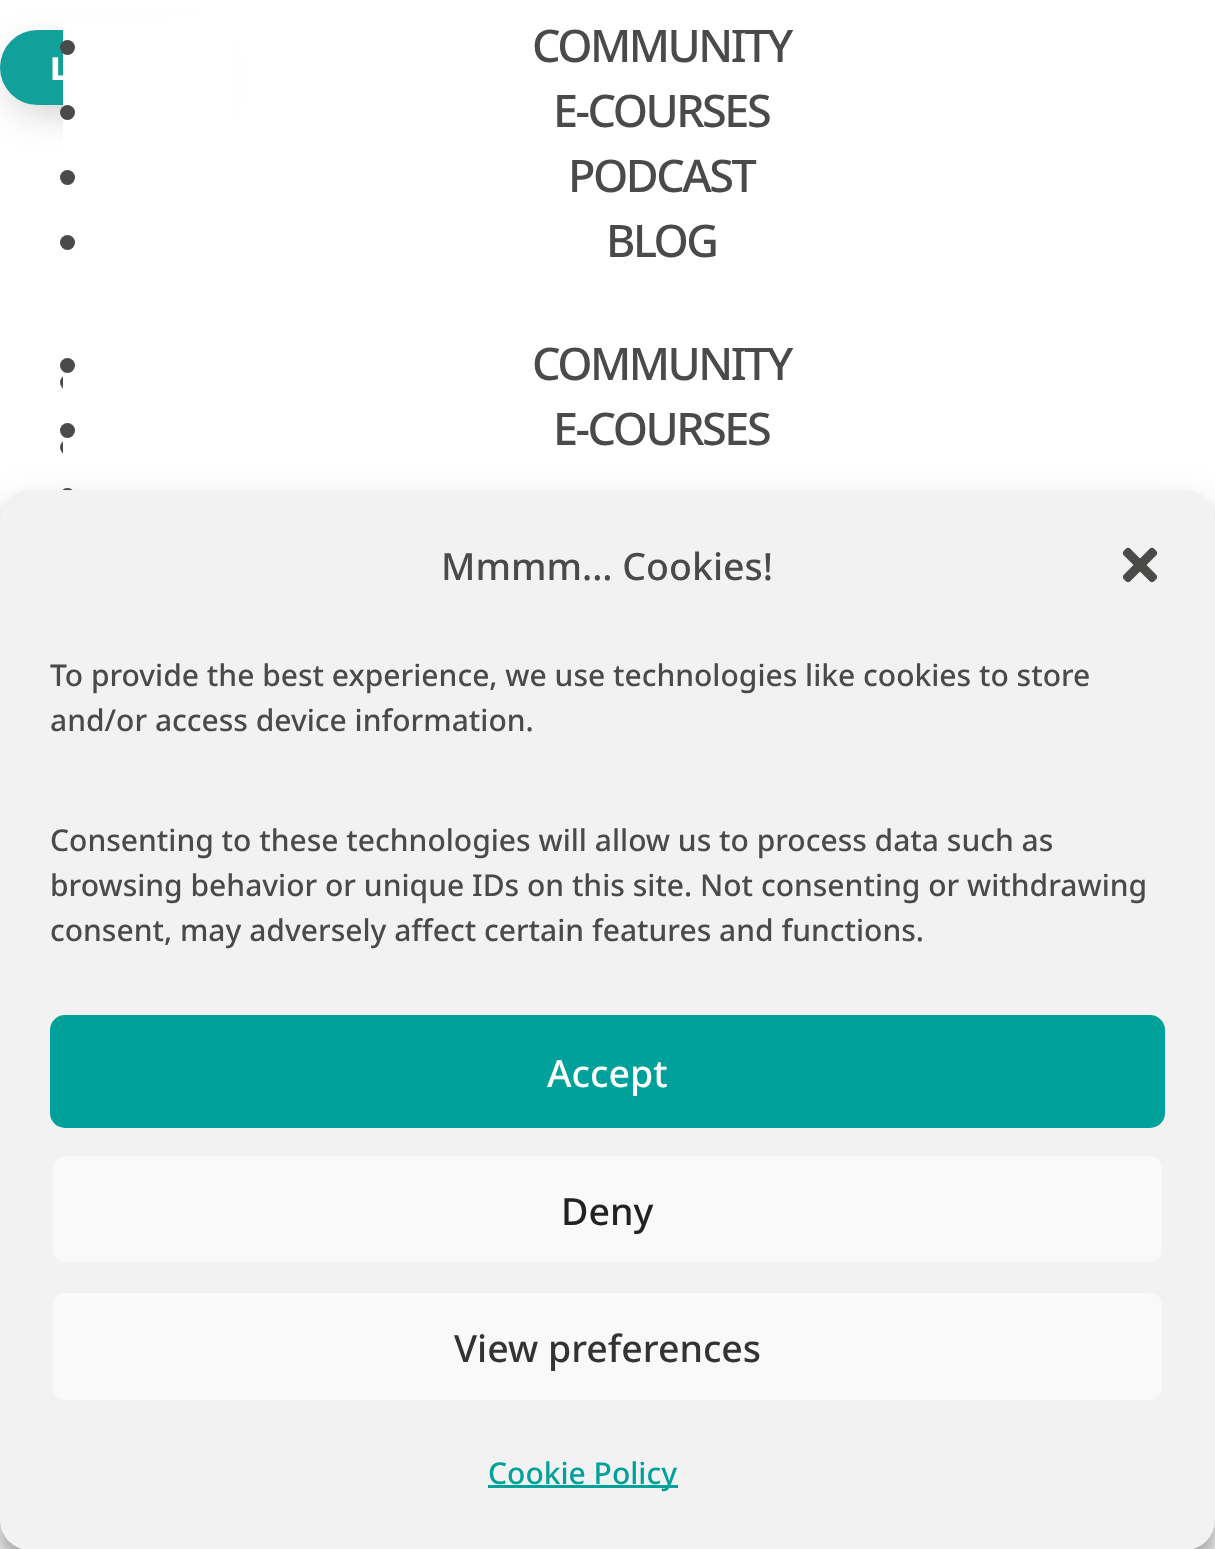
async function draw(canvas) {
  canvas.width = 1215
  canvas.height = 1549
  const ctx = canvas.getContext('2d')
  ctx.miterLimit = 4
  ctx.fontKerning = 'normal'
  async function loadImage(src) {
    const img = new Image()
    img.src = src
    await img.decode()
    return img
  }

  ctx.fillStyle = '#fff'
  ctx.fillRect(0, 0, 1215, 1549)
  ctx.fillStyle = '#0000004d'
  ctx.filter = 'blur(22.5px)'
  ctx.beginPath()
  ctx.roundRect(15, 58, 185, 45, 22.5)
  ctx.fill()
  ctx.filter = 'none'
  ctx.fillStyle = '#12a19a'
  ctx.beginPath()
  ctx.roundRect(0, 30, 215, 75, 37.5)
  ctx.fill()
  ctx.letterSpacing = '2px'
  ctx.font = '800 32px Noto Sans'
  ctx.fillStyle = '#fff'
  ctx.fillText('L', 50, 80)
  ctx.fillStyle = '#4a4a48'
  ctx.beginPath()
  ctx.arc(67.5, 382.5, 7.5, 0, 2 * Math.PI)
  ctx.fill()
  ctx.beginPath()
  ctx.arc(67.5, 447.5, 7.5, 0, 2 * Math.PI)
  ctx.fill()
  ctx.fillStyle = '#fff'
  ctx.fillRect(63, 17, 171, 438)
  ctx.fillStyle = '#4a4a48'
  ctx.beginPath()
  ctx.arc(67.5, 47.5, 7.5, 0, 2 * Math.PI)
  ctx.fill()
  ctx.letterSpacing = '-2.5px'
  ctx.font = '500 45px Noto Sans'
  ctx.fillText('COMMUNITY', 532, 62)
  ctx.beginPath()
  ctx.arc(67.5, 112.5, 7.5, 0, 2 * Math.PI)
  ctx.fill()
  ctx.fillText('E-COURSES', 553, 127)
  ctx.beginPath()
  ctx.arc(67.5, 177.5, 7.5, 0, 2 * Math.PI)
  ctx.fill()
  ctx.fillText('PODCAST', 568, 192)
  ctx.beginPath()
  ctx.arc(67.5, 242.5, 7.5, 0, 2 * Math.PI)
  ctx.fill()
  ctx.fillText('BLOG', 606, 257)
  ctx.beginPath()
  ctx.arc(67.5, 365.5, 7.5, 0, 2 * Math.PI)
  ctx.fill()
  ctx.fillText('COMMUNITY', 532, 380)
  ctx.beginPath()
  ctx.arc(67.5, 430.5, 7.5, 0, 2 * Math.PI)
  ctx.fill()
  ctx.fillText('E-COURSES', 553, 445)
  ctx.beginPath()
  ctx.arc(67.5, 495.5, 7.5, 0, 2 * Math.PI)
  ctx.fill()
  ctx.fillStyle = '#0000003b'
  ctx.filter = 'blur(7.5px)'
  ctx.beginPath()
  ctx.roundRect(0, 505, 1215, 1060, 30)
  ctx.fill()
  ctx.filter = 'none'
  ctx.fillStyle = '#00000030'
  ctx.filter = 'blur(25px)'
  ctx.beginPath()
  ctx.roundRect(0, 515, 1215, 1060, 30)
  ctx.fill()
  ctx.filter = 'none'
  ctx.fillStyle = '#f2f2f2'
  ctx.beginPath()
  ctx.roundRect(0, 490, 1215, 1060, 30)
  ctx.fill()
  ctx.letterSpacing = '0px'
  ctx.font = '500 37.5px Noto Sans'
  ctx.fillStyle = '#4a4a48'
  ctx.fillText('Mmmm... Cookies!', 441, 580)
  ctx.drawImage(await loadImage('image0.png'), 1122, 547, 36, 36)
  ctx.font = '500 30px Noto Sans'
  ctx.fillText('To provide the best experience, we use technologies like cookies to store', 50, 686)
  ctx.fillText('and/or access device information.', 50, 731)
  ctx.fillText('Consenting to these technologies will allow us to process data such as', 50, 851)
  ctx.fillText('browsing behavior or unique IDs on this site. Not consenting or withdrawing', 50, 896)
  ctx.fillText('consent, may adversely affect certain features and functions.', 50, 941)
  ctx.fillStyle = '#00a19a'
  ctx.beginPath()
  ctx.roundRect(51.5, 1016.5, 1112, 110, 13.5)
  ctx.fill()
  ctx.strokeStyle = '#00a19a'
  ctx.lineWidth = 3
  ctx.stroke()
  ctx.font = '500 37.5px Noto Sans'
  ctx.fillStyle = '#fff'
  ctx.fillText('Accept', 547, 1087)
  ctx.fillStyle = '#f9f9f9'
  ctx.beginPath()
  ctx.roundRect(51.5, 1154.5, 1112, 109, 13.5)
  ctx.fill()
  ctx.strokeStyle = '#f2f2f2'
  ctx.stroke()
  ctx.fillStyle = '#222'
  ctx.fillText('Deny', 561, 1225)
  ctx.fillStyle = '#f9f9f9'
  ctx.beginPath()
  ctx.roundRect(51.5, 1291.5, 1112, 110, 13.5)
  ctx.fill()
  ctx.stroke()
  ctx.fillStyle = '#333'
  ctx.fillText('View preferences', 454, 1362)
  ctx.fillStyle = '#00a19a'
  ctx.fillRect(488, 1485, 190, 3)
  ctx.font = '500 30px Noto Sans'
  ctx.fillText('Cookie Policy', 488, 1484)
}

draw(document.querySelector('canvas'))
